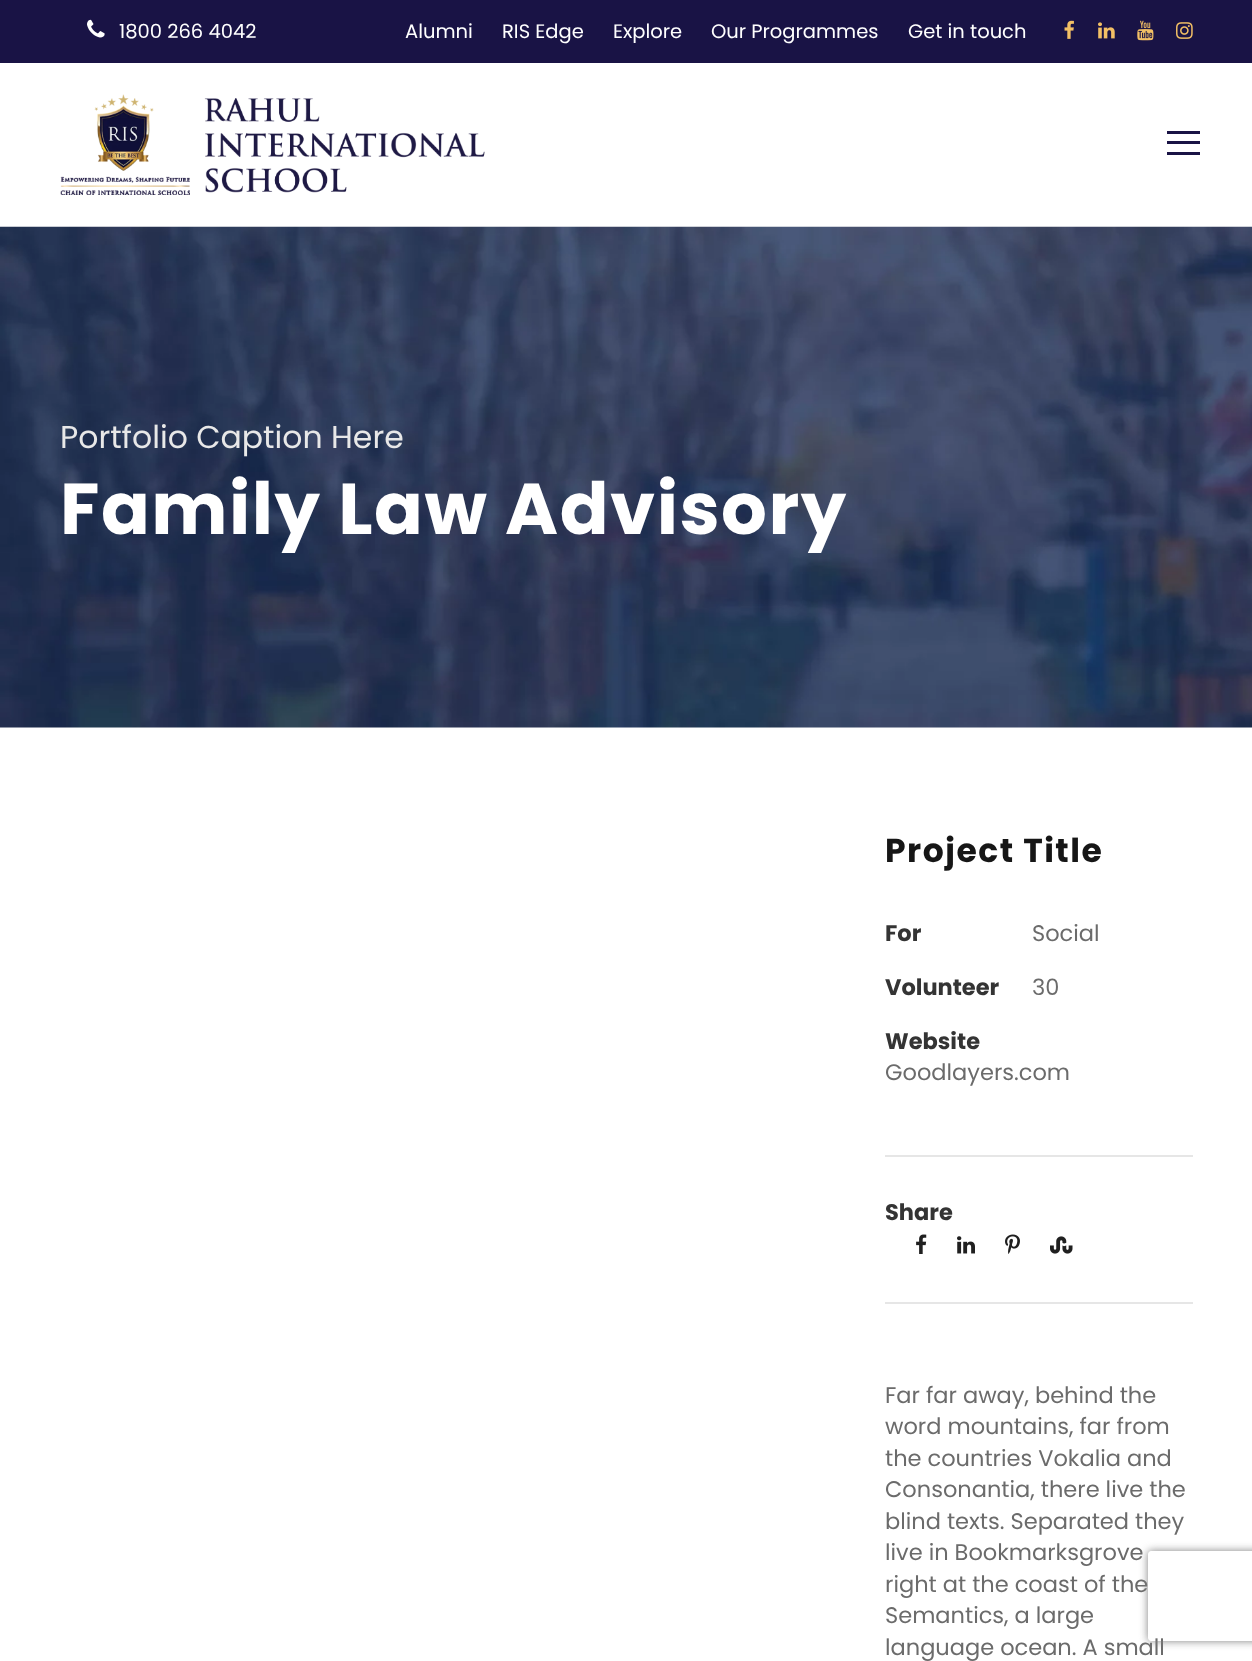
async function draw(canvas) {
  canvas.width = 1252
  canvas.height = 1661
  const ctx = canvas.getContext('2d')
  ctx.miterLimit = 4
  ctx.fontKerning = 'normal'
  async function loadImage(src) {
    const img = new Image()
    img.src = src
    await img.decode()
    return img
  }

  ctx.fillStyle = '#191345'
  ctx.fillRect(0, 0, 1252, 1661)
  ctx.drawImage(await loadImage('image0.png'), 87, 19, 18, 19)
  ctx.font = '19.5px Poppins'
  ctx.fillStyle = '#fff'
  ctx.fillText('1800 266 4042', 119, 38)
  ctx.fillText('Alumni', 405, 38)
  ctx.fillText('RIS Edge', 502, 38)
  ctx.fillText('Explore', 613, 38)
  ctx.fillText('Our Programmes', 711, 38)
  ctx.fillText('Get in touch', 908, 38)
  ctx.drawImage(await loadImage('image1.png'), 1064, 20, 10, 19)
  ctx.drawImage(await loadImage('image2.png'), 1098, 22, 17, 17)
  ctx.drawImage(await loadImage('image3.png'), 1137, 20, 17, 21)
  ctx.drawImage(await loadImage('image4.png'), 1176, 22, 17, 17)
  ctx.fillRect(0, 63, 1252, 164)
  ctx.drawImage(await loadImage('image5.png'), 60, 94, 425, 101)
  ctx.fillStyle = '#191345'
  ctx.fillRect(1167, 131, 33, 3)
  ctx.fillRect(1167, 141, 33, 3)
  ctx.fillRect(1167, 152, 33, 3)
  ctx.fillStyle = '#fff'
  ctx.fillRect(0, 727, 1252, 934)
  ctx.drawImage(await loadImage('image6.png'), 0, 226, 1252, 502)
  ctx.font = '31.5px Poppins'
  ctx.fillStyle = '#e8e8e8'
  ctx.fillText('Portfolio Caption Here', 60, 448)
  ctx.letterSpacing = '1.5px'
  ctx.font = 'bold 72px Poppins'
  ctx.fillStyle = '#fff'
  ctx.fillText('Family Law Advisory', 60, 534)
  ctx.font = 'bold 33px Poppins'
  ctx.fillStyle = '#161616'
  ctx.fillText('Project Title', 885, 862)
  ctx.fillStyle = '#e6e6e6'
  ctx.fillRect(885, 1302, 308, 2)
  ctx.letterSpacing = '0px'
  ctx.font = 'bold 22.5px Poppins'
  ctx.fillStyle = '#343434'
  ctx.fillText('For', 885, 941)
  ctx.font = '22.5px Poppins'
  ctx.fillStyle = '#6b6b6b'
  ctx.fillText('Social', 1032, 941)
  ctx.font = 'bold 22.5px Poppins'
  ctx.fillStyle = '#343434'
  ctx.fillText('Volunteer', 885, 995)
  ctx.font = '22.5px Poppins'
  ctx.fillStyle = '#6b6b6b'
  ctx.fillText('30', 1032, 995)
  ctx.font = 'bold 22.5px Poppins'
  ctx.fillStyle = '#343434'
  ctx.fillText('Website', 885, 1049)
  ctx.font = '22.5px Poppins'
  ctx.fillStyle = '#6b6b6b'
  ctx.fillText('Goodlayers.com', 885, 1080)
  ctx.fillStyle = '#e6e6e6'
  ctx.fillRect(885, 1155, 308, 2)
  ctx.font = 'bold 22.5px Poppins'
  ctx.fillStyle = '#343434'
  ctx.fillText('Share', 885, 1220)
  ctx.drawImage(await loadImage('image7.png'), 916, 1234, 11, 20)
  ctx.drawImage(await loadImage('image8.png'), 957, 1236, 18, 18)
  ctx.drawImage(await loadImage('image9.png'), 1005, 1234, 15, 20)
  ctx.drawImage(await loadImage('image10.png'), 1050, 1236, 23, 18)
  ctx.font = '22.5px Poppins'
  ctx.fillStyle = '#6b6b6b'
  ctx.fillText('Far far away, behind the', 885, 1403)
  ctx.fillText('word mountains, far from', 885, 1434)
  ctx.fillText('the countries Vokalia and', 885, 1466)
  ctx.fillText('Consonantia, there live the', 885, 1497)
  ctx.fillText('blind texts. Separated they', 885, 1529)
  ctx.fillText('live in Bookmarksgrove', 885, 1560)
  ctx.fillText('right at the coast of the', 885, 1592)
  ctx.fillText('Semantics, a large', 885, 1623)
  ctx.fillText('language ocean. A small', 885, 1655)
  ctx.save()
  ctx.beginPath()
  ctx.moveTo(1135, 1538)
  ctx.lineTo(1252, 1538)
  ctx.lineTo(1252, 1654)
  ctx.lineTo(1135, 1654)
  ctx.closePath()
  ctx.moveTo(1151, 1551)
  ctx.lineTo(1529, 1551)
  ctx.bezierCurveTo(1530.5, 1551, 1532, 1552.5, 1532, 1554)
  ctx.lineTo(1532, 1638)
  ctx.bezierCurveTo(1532, 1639.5, 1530.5, 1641, 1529, 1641)
  ctx.lineTo(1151, 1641)
  ctx.bezierCurveTo(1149.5, 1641, 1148, 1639.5, 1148, 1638)
  ctx.lineTo(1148, 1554)
  ctx.bezierCurveTo(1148, 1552.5, 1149.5, 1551, 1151, 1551)
  ctx.closePath()
  ctx.clip('evenodd')
  ctx.fillStyle = '#808080'
  ctx.filter = 'blur(4px)'
  ctx.beginPath()
  ctx.roundRect(1148, 1551, 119, 90, 3)
  ctx.fill()
  ctx.filter = 'none'
  ctx.restore()
}

draw(document.querySelector('canvas'))
